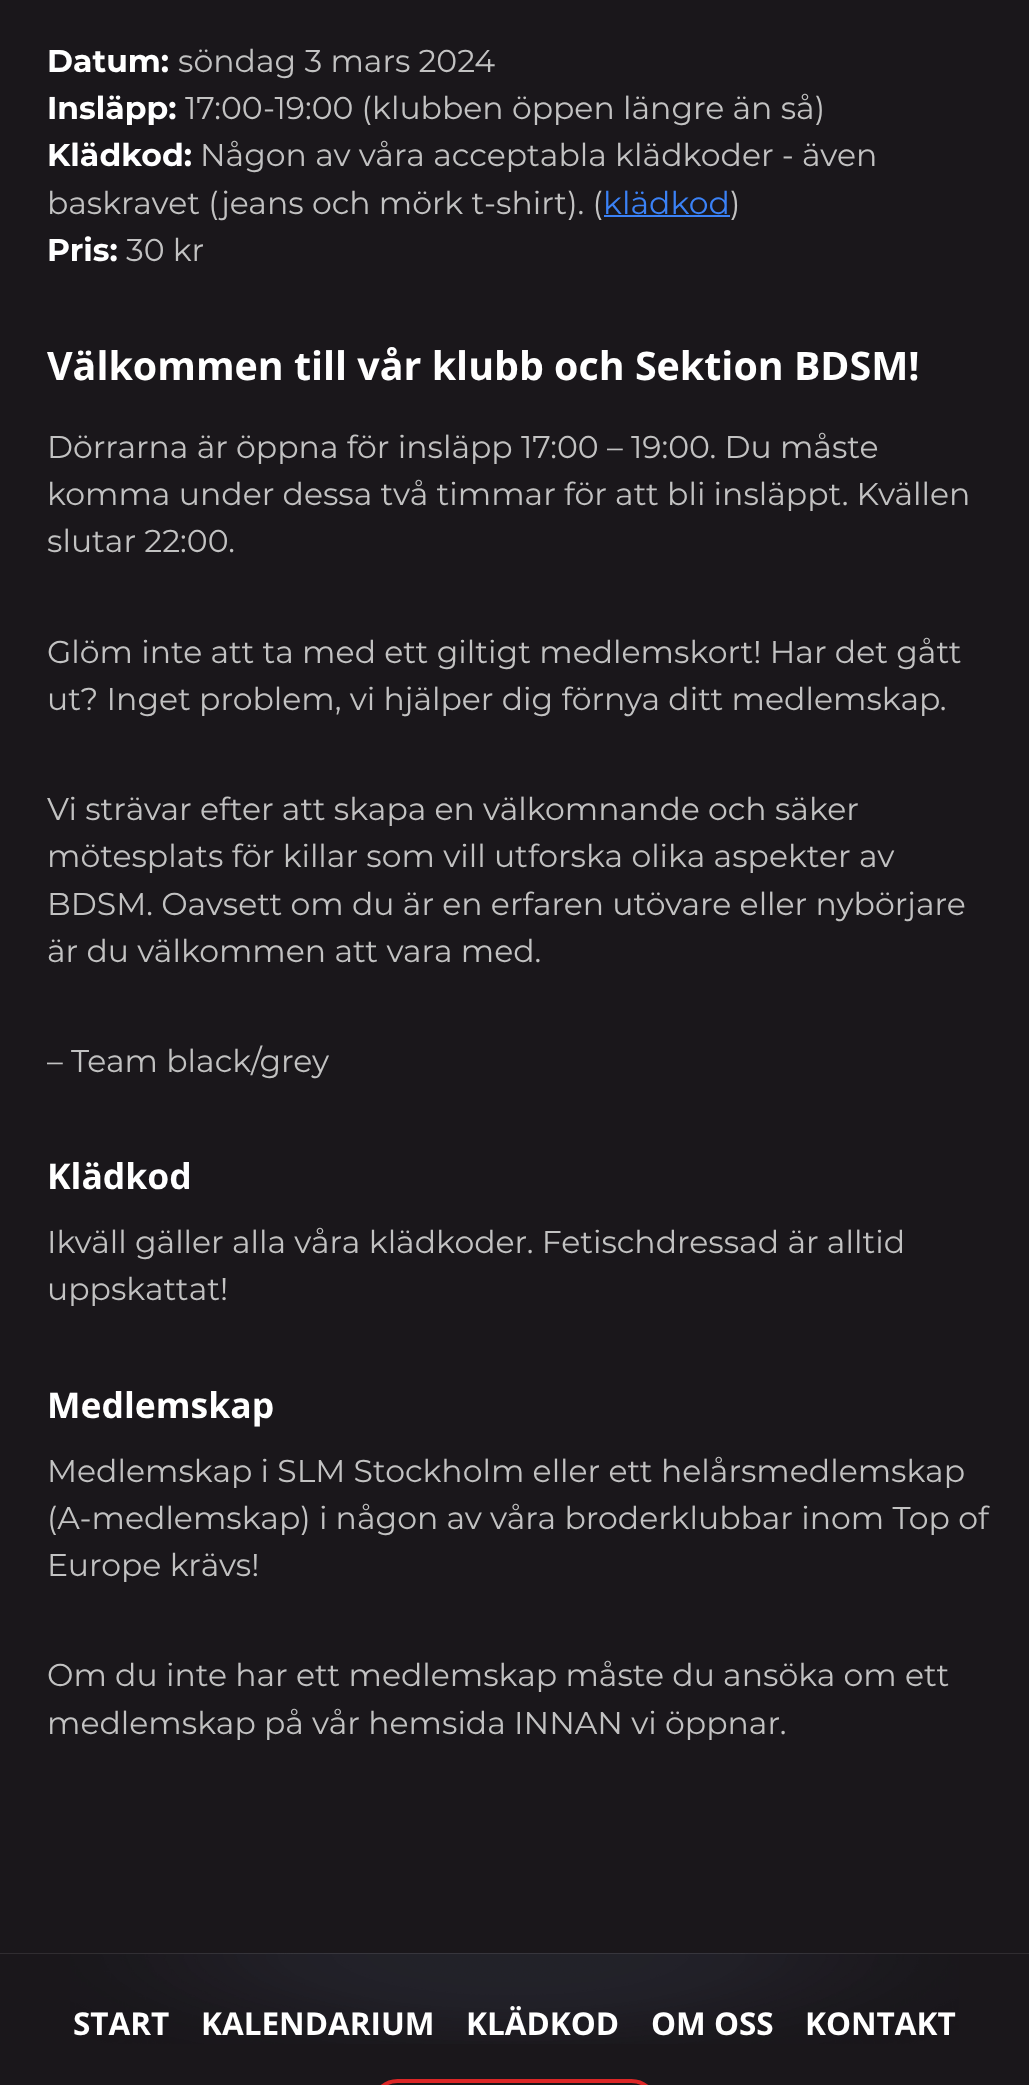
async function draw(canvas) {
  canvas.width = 1029
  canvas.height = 2085
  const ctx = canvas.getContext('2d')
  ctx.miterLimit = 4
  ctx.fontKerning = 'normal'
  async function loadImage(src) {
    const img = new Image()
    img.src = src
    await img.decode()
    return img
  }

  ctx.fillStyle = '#1a171b'
  ctx.fillRect(0, 0, 1029, 2085)
  ctx.font = 'bold 31.5px Montserrat'
  ctx.fillStyle = '#fff'
  ctx.fillText('Datum:', 47, 72)
  ctx.font = '31.5px Montserrat'
  ctx.fillStyle = '#c2c2c2'
  ctx.fillText('söndag 3 mars 2024', 178, 72)
  ctx.font = 'bold 31.5px Montserrat'
  ctx.fillStyle = '#fff'
  ctx.fillText('Insläpp:', 47, 119)
  ctx.font = '31.5px Montserrat'
  ctx.fillStyle = '#c2c2c2'
  ctx.fillText('17:00-19:00 (klubben öppen längre än så)', 185, 119)
  ctx.font = 'bold 31.5px Montserrat'
  ctx.fillStyle = '#fff'
  ctx.fillText('Klädkod:', 47, 166)
  ctx.font = '31.5px Montserrat'
  ctx.fillStyle = '#c2c2c2'
  ctx.fillText('Någon av våra acceptabla klädkoder - även', 200, 166)
  ctx.fillText('baskravet (jeans och mörk t-shirt). (', 47, 214)
  ctx.fillStyle = '#3b82f6'
  ctx.fillText('klädkod', 603, 214)
  ctx.fillRect(604, 215, 126, 2)
  ctx.fillStyle = '#c2c2c2'
  ctx.fillText(')', 730, 214)
  ctx.font = 'bold 31.5px Montserrat'
  ctx.fillStyle = '#fff'
  ctx.fillText('Pris:', 47, 261)
  ctx.font = '31.5px Montserrat'
  ctx.fillStyle = '#c2c2c2'
  ctx.fillText('30 kr', 126, 261)
  ctx.font = 'bold 39.4px Open Sans'
  ctx.fillStyle = '#fff'
  ctx.fillText('Välkommen till vår klubb och Sektion BDSM!', 47, 380)
  ctx.font = '31.5px Montserrat'
  ctx.fillStyle = '#c2c2c2'
  ctx.fillText('Dörrarna är öppna för insläpp 17:00 – 19:00. Du måste', 47, 458)
  ctx.fillText('komma under dessa två timmar för att bli insläppt. Kvällen', 47, 505)
  ctx.fillText('slutar 22:00.', 47, 552)
  ctx.fillText('Glöm inte att ta med ett giltigt medlemskort! Har det gått', 47, 663)
  ctx.fillText('ut? Inget problem, vi hjälper dig förnya ditt medlemskap.', 47, 710)
  ctx.fillText('Vi strävar efter att skapa en välkomnande och säker', 47, 820)
  ctx.fillText('mötesplats för killar som vill utforska olika aspekter av', 47, 867)
  ctx.fillText('BDSM. Oavsett om du är en erfaren utövare eller nybörjare', 47, 915)
  ctx.fillText('är du välkommen att vara med.', 47, 962)
  ctx.fillText('– Team black/grey', 47, 1072)
  ctx.font = 'bold 35.5px Open Sans'
  ctx.fillStyle = '#fff'
  ctx.fillText('Klädkod', 47, 1189)
  ctx.font = '31.5px Montserrat'
  ctx.fillStyle = '#c2c2c2'
  ctx.fillText('Ikväll gäller alla våra klädkoder. Fetischdressad är alltid', 47, 1253)
  ctx.fillText('uppskattat!', 47, 1300)
  ctx.font = 'bold 35.5px Open Sans'
  ctx.fillStyle = '#fff'
  ctx.fillText('Medlemskap', 47, 1418)
  ctx.font = '31.5px Montserrat'
  ctx.fillStyle = '#c2c2c2'
  ctx.fillText('Medlemskap i SLM Stockholm eller ett helårsmedlemskap', 47, 1482)
  ctx.fillText('(A-medlemskap) i någon av våra broderklubbar inom Top of', 47, 1529)
  ctx.fillText('Europe krävs!', 47, 1576)
  ctx.fillText('Om du inte har ett medlemskap måste du ansöka om ett', 47, 1686)
  ctx.fillText('medlemskap på vår hemsida INNAN vi öppnar.', 47, 1734)
  ctx.drawImage(await loadImage('image0.png'), 0, 1953, 1029, 91)
  ctx.font = 'bold 31.5px Open Sans'
  ctx.fillStyle = '#fff'
  ctx.fillText('START', 73, 2035)
  ctx.fillText('KALENDARIUM', 201, 2035)
  ctx.fillText('KLÄDKOD', 466, 2035)
  ctx.fillText('OM OSS', 651, 2035)
  ctx.fillText('KONTAKT', 805, 2035)
  ctx.beginPath()
  ctx.roundRect(373, 2081, 283, 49, 41)
  ctx.strokeStyle = '#dc2626'
  ctx.lineWidth = 4
  ctx.stroke()
}

draw(document.querySelector('canvas'))
